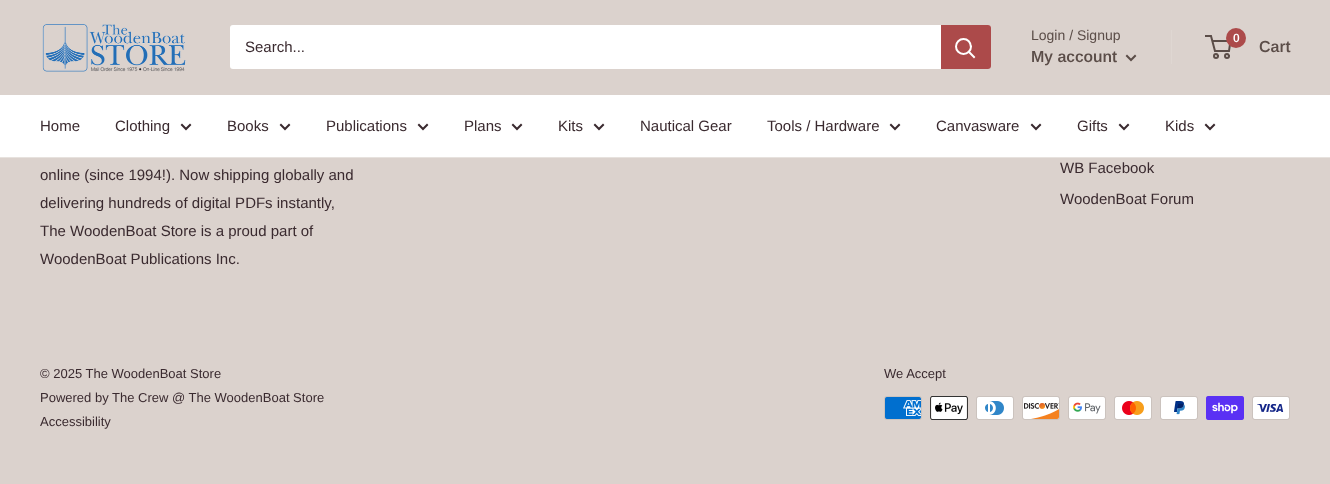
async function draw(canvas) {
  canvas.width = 1330
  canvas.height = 484
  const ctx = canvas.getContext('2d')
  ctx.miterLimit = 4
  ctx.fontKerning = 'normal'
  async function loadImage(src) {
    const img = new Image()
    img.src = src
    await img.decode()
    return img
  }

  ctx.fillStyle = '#dbd2cd'
  ctx.fillRect(0, 0, 1330, 484)
  ctx.drawImage(await loadImage('image0.png'), 42, 24, 144, 48)
  ctx.fillStyle = '#fff'
  ctx.beginPath()
  ctx.roundRect(230, 25, 761, 44, 3)
  ctx.fill()
  ctx.font = '15px Arimo'
  ctx.fillStyle = '#3a2a2f'
  ctx.fillText('Search...', 245, 52)
  ctx.fillStyle = '#ac4a4a'
  ctx.beginPath()
  ctx.roundRect(941, 25, 50, 44, [0, 3, 3, 0])
  ctx.fill()
  ctx.beginPath()
  ctx.moveTo(974, 57)
  ctx.lineTo(969, 52)
  ctx.strokeStyle = '#fff'
  ctx.lineWidth = 2
  ctx.lineCap = 'square'
  ctx.stroke()
  ctx.beginPath()
  ctx.arc(963.5, 46.5, 7.5, 0, 2 * Math.PI)
  ctx.stroke()
  ctx.font = '14px Arimo'
  ctx.fillStyle = '#5b4d48'
  ctx.fillText('Login / Signup', 1031, 40)
  ctx.fillStyle = '#dfd7d2'
  ctx.fillRect(1171, 30, 1, 34)
  ctx.font = '600 16px Arimo'
  ctx.fillStyle = '#5b4d48'
  ctx.fillText('My account', 1031, 62)
  ctx.beginPath()
  ctx.moveTo(1135, 56)
  ctx.lineTo(1131, 60)
  ctx.lineTo(1127, 56)
  ctx.strokeStyle = '#5b4d48'
  ctx.stroke()
  ctx.beginPath()
  ctx.arc(1216, 56, 2, 0, 2 * Math.PI)
  ctx.stroke()
  ctx.beginPath()
  ctx.arc(1227, 56, 2, 0, 2 * Math.PI)
  ctx.stroke()
  ctx.beginPath()
  ctx.moveTo(1212.5, 41)
  ctx.lineTo(1230.5, 41)
  ctx.lineTo(1229, 51)
  ctx.lineTo(1215, 51)
  ctx.lineTo(1211, 36)
  ctx.lineTo(1205, 36)
  ctx.lineCap = 'butt'
  ctx.stroke()
  ctx.fillStyle = '#ac4a4a'
  ctx.beginPath()
  ctx.arc(1236, 38, 10, 0, 2 * Math.PI)
  ctx.fill()
  ctx.font = '600 12px Arimo'
  ctx.fillStyle = '#fff'
  ctx.fillText('0', 1233, 42)
  ctx.font = '600 16px Arimo'
  ctx.fillStyle = '#5b4d48'
  ctx.fillText('Cart', 1259, 52)
  ctx.fillStyle = '#fff'
  ctx.fillRect(0, 95, 1330, 62)
  ctx.fillStyle = '#e7e2de'
  ctx.fillRect(0, 157, 1330, 1)
  ctx.font = '15px Arimo'
  ctx.fillStyle = '#3a2a2f'
  ctx.fillText('Home', 40, 131)
  ctx.fillText('Clothing', 115, 131)
  ctx.beginPath()
  ctx.moveTo(190, 125)
  ctx.lineTo(186, 129)
  ctx.lineTo(182, 125)
  ctx.strokeStyle = '#3a2a2f'
  ctx.lineCap = 'square'
  ctx.stroke()
  ctx.fillText('Books', 227, 131)
  ctx.beginPath()
  ctx.moveTo(289, 125)
  ctx.lineTo(285, 129)
  ctx.lineTo(281, 125)
  ctx.stroke()
  ctx.fillText('Publications', 326, 131)
  ctx.beginPath()
  ctx.moveTo(427, 125)
  ctx.lineTo(423, 129)
  ctx.lineTo(419, 125)
  ctx.stroke()
  ctx.fillText('Plans', 464, 131)
  ctx.beginPath()
  ctx.moveTo(521, 125)
  ctx.lineTo(517, 129)
  ctx.lineTo(513, 125)
  ctx.stroke()
  ctx.fillText('Kits', 558, 131)
  ctx.beginPath()
  ctx.moveTo(603, 125)
  ctx.lineTo(599, 129)
  ctx.lineTo(595, 125)
  ctx.stroke()
  ctx.fillText('Nautical Gear', 640, 131)
  ctx.fillText('Tools / Hardware', 767, 131)
  ctx.beginPath()
  ctx.moveTo(899, 125)
  ctx.lineTo(895, 129)
  ctx.lineTo(891, 125)
  ctx.stroke()
  ctx.fillText('Canvasware', 936, 131)
  ctx.beginPath()
  ctx.moveTo(1040, 125)
  ctx.lineTo(1036, 129)
  ctx.lineTo(1032, 125)
  ctx.stroke()
  ctx.fillText('Gifts', 1077, 131)
  ctx.beginPath()
  ctx.moveTo(1128, 125)
  ctx.lineTo(1124, 129)
  ctx.lineTo(1120, 125)
  ctx.stroke()
  ctx.fillText('Kids', 1165, 131)
  ctx.beginPath()
  ctx.moveTo(1214, 125)
  ctx.lineTo(1210, 129)
  ctx.lineTo(1206, 125)
  ctx.stroke()
  ctx.fillText('online (since 1994!). Now shipping globally and', 40, 180)
  ctx.fillText('delivering hundreds of digital PDFs instantly,', 40, 208)
  ctx.fillText('The WoodenBoat Store is a proud part of', 40, 236)
  ctx.fillText('WoodenBoat Publications Inc.', 40, 264)
  ctx.fillText('WB Facebook', 1060, 173)
  ctx.fillText('WoodenBoat Forum', 1060, 204)
  ctx.font = '13px Arimo'
  ctx.fillText('© 2025 The WoodenBoat Store', 40, 378)
  ctx.fillText('Powered by The Crew @ The WoodenBoat Store', 40, 402)
  ctx.fillText('Accessibility', 40, 426)
  ctx.fillText('We Accept', 884, 378)
  ctx.drawImage(await loadImage('image1.png'), 884, 396, 38, 24)
  ctx.drawImage(await loadImage('image2.png'), 930, 396, 38, 24)
  ctx.drawImage(await loadImage('image3.png'), 976, 396, 38, 24)
  ctx.drawImage(await loadImage('image4.png'), 1022, 396, 38, 24)
  ctx.drawImage(await loadImage('image5.png'), 1068, 396, 38, 24)
  ctx.drawImage(await loadImage('image6.png'), 1114, 396, 38, 24)
  ctx.drawImage(await loadImage('image7.png'), 1160, 396, 38, 24)
  ctx.drawImage(await loadImage('image8.png'), 1206, 396, 38, 24)
  ctx.drawImage(await loadImage('image9.png'), 1252, 396, 38, 24)
}

draw(document.querySelector('canvas'))
